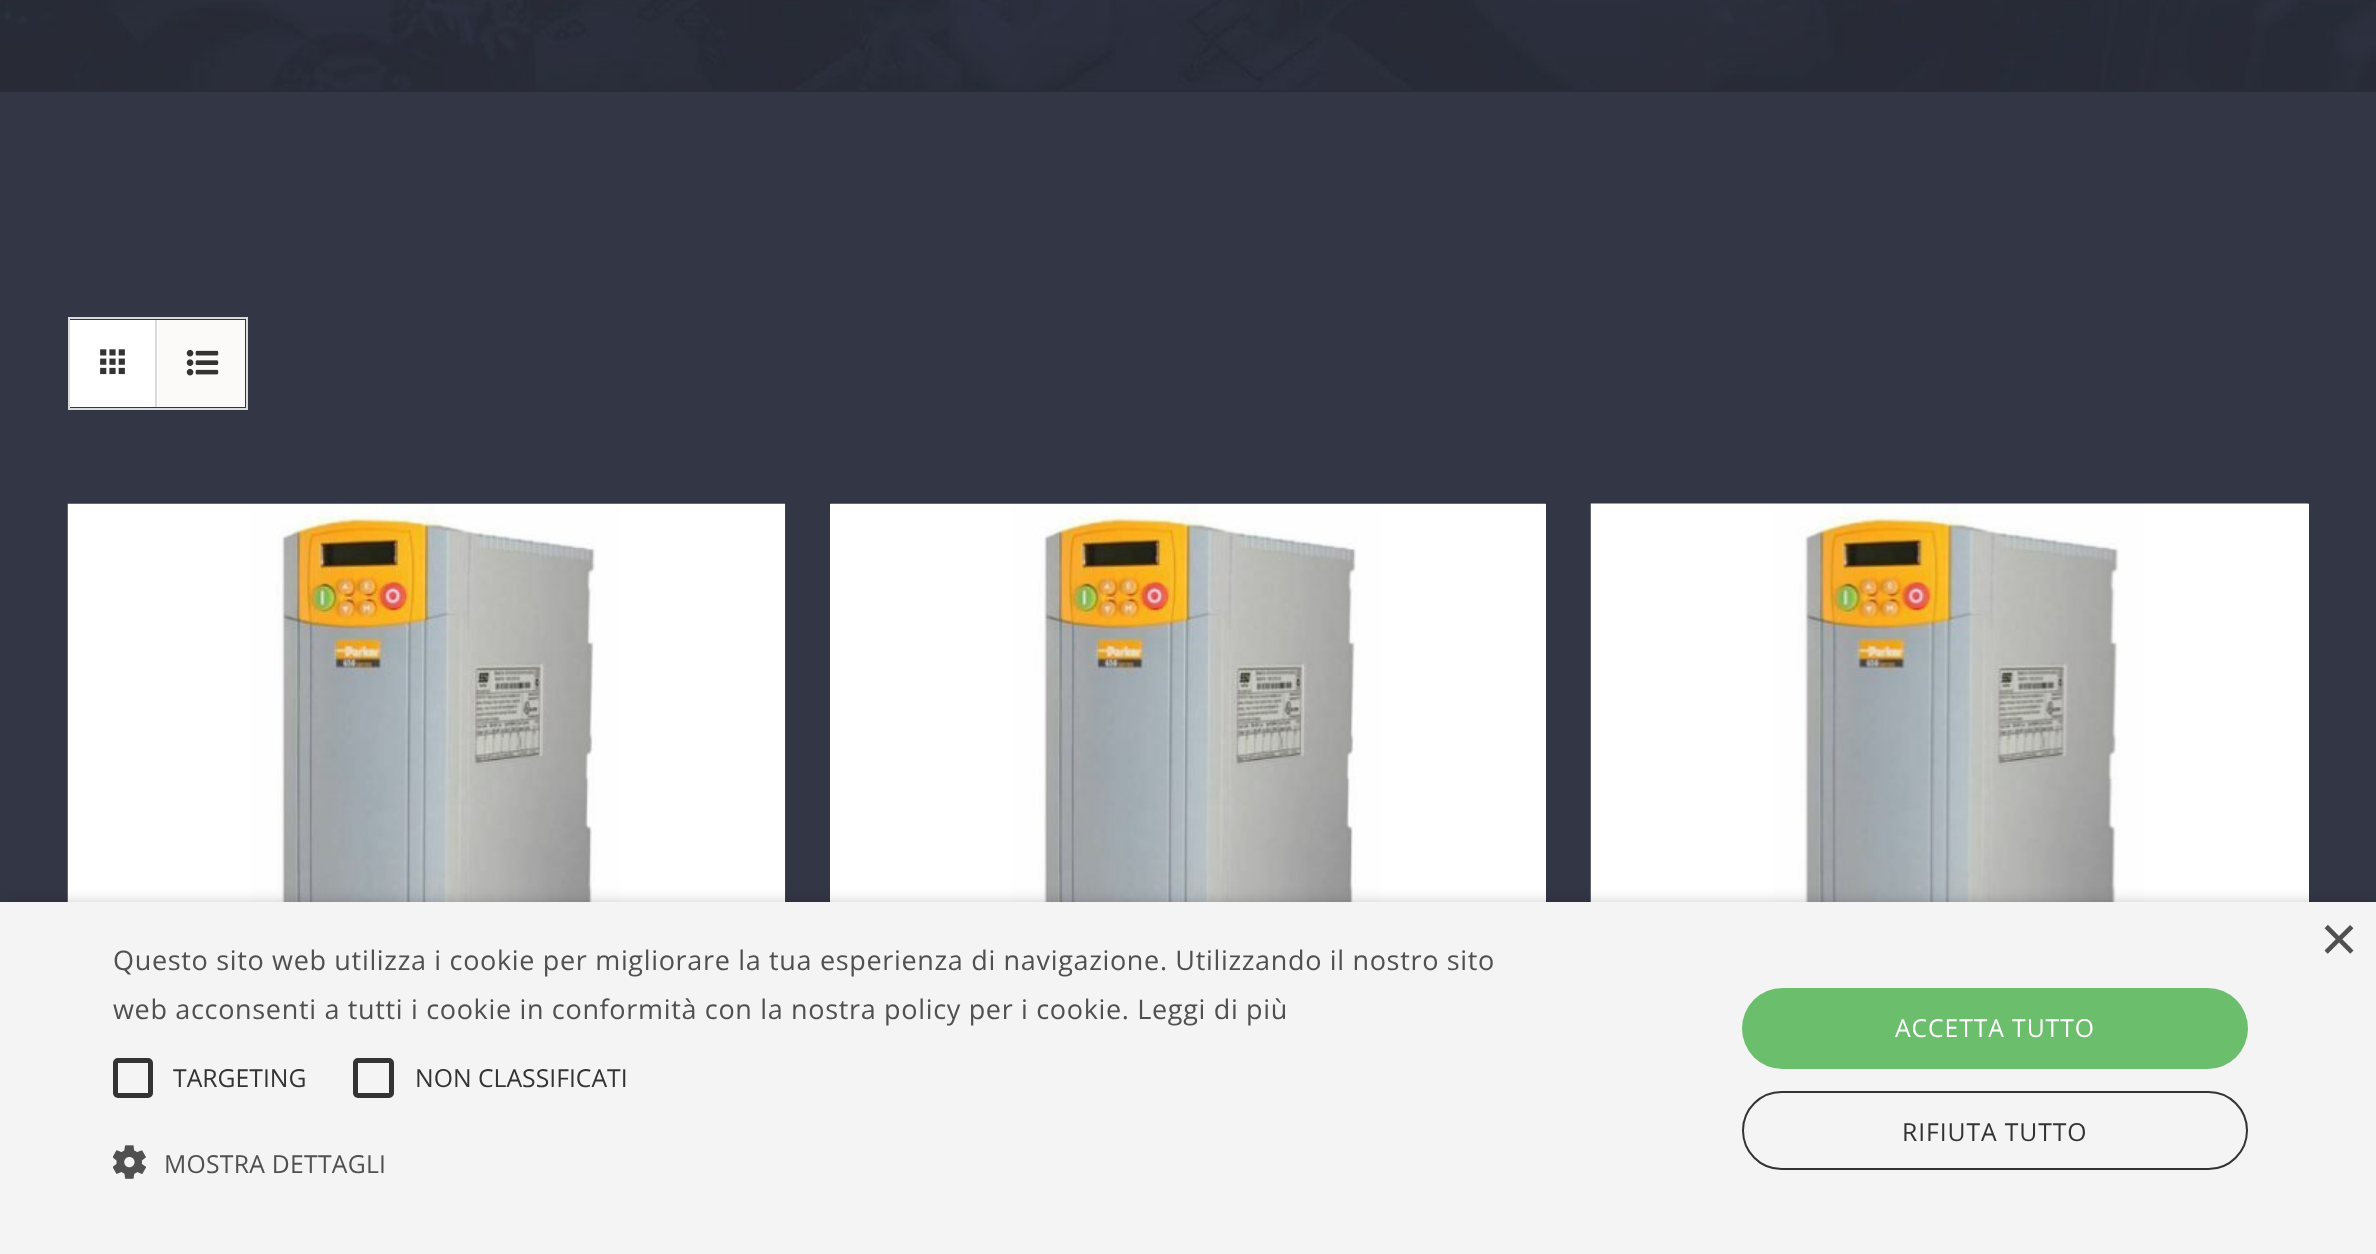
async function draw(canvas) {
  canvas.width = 2376
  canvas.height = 1254
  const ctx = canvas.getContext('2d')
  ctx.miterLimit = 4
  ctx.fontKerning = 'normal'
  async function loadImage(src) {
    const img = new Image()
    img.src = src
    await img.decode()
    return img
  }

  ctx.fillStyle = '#333645'
  ctx.fillRect(0, 0, 2376, 1254)
  ctx.drawImage(await loadImage('image0.png'), 0, 0, 2376, 90)
  ctx.fillStyle = '#292b37'
  ctx.fillRect(0, 90, 2376, 2)
  ctx.strokeStyle = '#dbdbdb'
  ctx.lineWidth = 2
  ctx.strokeRect(69, 318, 178, 91)
  ctx.fillStyle = '#fff'
  ctx.fillRect(70, 320, 88, 87)
  ctx.fillStyle = '#dbdbdb'
  ctx.fillRect(155, 320, 2, 87)
  ctx.drawImage(await loadImage('image1.png'), 100, 349, 25, 26)
  ctx.fillStyle = '#fbfaf9'
  ctx.fillRect(158, 320, 87, 87)
  ctx.drawImage(await loadImage('image2.png'), 186, 349, 33, 27)
  ctx.drawImage(await loadImage('image3.png'), 67, 503, 719, 399)
  ctx.fillStyle = '#fff'
  ctx.fillRect(830, 504, 716, 398)
  ctx.drawImage(await loadImage('image4.png'), 830, 503, 716, 399)
  ctx.fillRect(2307, 504, 2, 398)
  ctx.drawImage(await loadImage('image5.png'), 1590, 503, 719, 399)
  ctx.fillStyle = '#00000059'
  ctx.filter = 'blur(9px)'
  ctx.beginPath()
  ctx.rect(2, 907, 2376, 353)
  ctx.fill()
  ctx.filter = 'none'
  ctx.fillStyle = '#f4f4f4'
  ctx.fillRect(0, 902, 2376, 352)
  ctx.font = '65px Liberation Sans'
  ctx.fillStyle = '#505050'
  ctx.fillText('×', 2320, 961)
  ctx.letterSpacing = '0.67px'
  ctx.font = '27px Open Sans'
  ctx.fillText('Questo sito web utilizza i cookie per migliorare la tua esperienza di navigazione. Utilizzando il nostro sito', 113, 970)
  ctx.fillText('web acconsenti a tutti i cookie in conformità con la nostra policy per i cookie. Leggi di più', 113, 1019)
  ctx.beginPath()
  ctx.roundRect(115.5, 1060.5, 35, 35, 2.5)
  ctx.strokeStyle = '#333'
  ctx.lineWidth = 5
  ctx.stroke()
  ctx.letterSpacing = '0px'
  ctx.font = '24.75px Open Sans'
  ctx.fillStyle = '#333'
  ctx.fillText('TARGETING', 173, 1087)
  ctx.beginPath()
  ctx.roundRect(355.5, 1060.5, 36, 35, 2.5)
  ctx.stroke()
  ctx.fillText('NON CLASSIFICATI', 415, 1087)
  ctx.drawImage(await loadImage('image6.png'), 113, 1145, 33, 34)
  ctx.letterSpacing = '0.25px'
  ctx.fillStyle = '#505050'
  ctx.fillText('MOSTRA DETTAGLI', 164, 1173)
  ctx.fillStyle = '#6bbe6b'
  ctx.beginPath()
  ctx.roundRect(1742, 988, 506, 81, 40.5)
  ctx.fill()
  ctx.letterSpacing = '0.9px'
  ctx.fillStyle = '#fff'
  ctx.fillText('ACCETTA TUTTO', 1895, 1037)
  ctx.beginPath()
  ctx.roundRect(1743, 1092, 504, 77, 38.5)
  ctx.lineWidth = 2
  ctx.stroke()
  ctx.fillStyle = '#333'
  ctx.fillText('RIFIUTA TUTTO', 1902, 1141)
}

draw(document.querySelector('canvas'))
